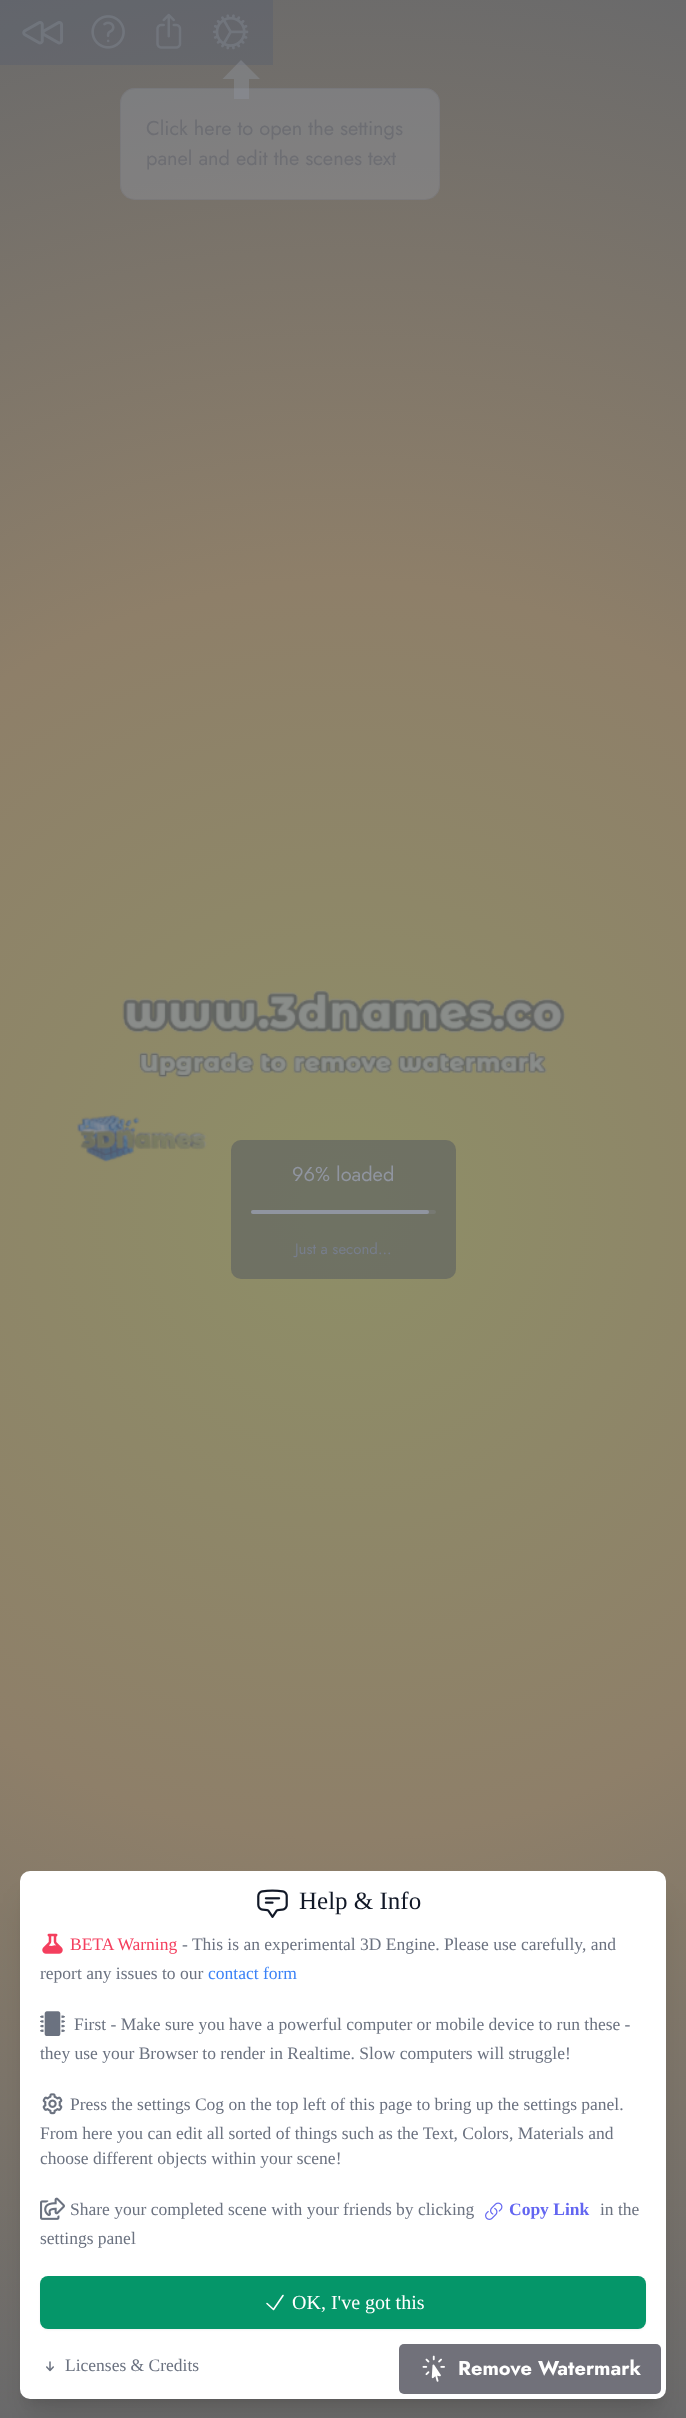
async function draw(canvas) {
  canvas.width = 686
  canvas.height = 2418
  const ctx = canvas.getContext('2d')
  ctx.miterLimit = 4
  ctx.fontKerning = 'normal'
  async function loadImage(src) {
    const img = new Image()
    img.src = src
    await img.decode()
    return img
  }
  let gradient

  ctx.fillStyle = '#fff'
  ctx.fillRect(0, 0, 686, 2418)
  gradient = ctx.createRadialGradient(343, 1209, 0, 343, 1209, 1257)
  gradient.addColorStop(0, '#8e8f67')
  gradient.addColorStop(0.5, '#8e7f69')
  gradient.addColorStop(1, '#6a6a6b')
  ctx.fillStyle = gradient
  ctx.fillRect(0, 0, 686, 2418)
  ctx.fillStyle = '#58606e66'
  ctx.fillRect(0, 0, 273, 65)
  ctx.drawImage(await loadImage('image0.png'), 22, 21, 42, 24)
  ctx.drawImage(await loadImage('image1.png'), 91, 15, 34, 34)
  ctx.drawImage(await loadImage('image2.png'), 156, 13, 26, 36)
  ctx.drawImage(await loadImage('image3.png'), 212, 14, 37, 36)
  ctx.fillStyle = '#9095a066'
  ctx.beginPath()
  ctx.roundRect(120, 88, 320, 112, 15)
  ctx.fill()
  ctx.beginPath()
  ctx.roundRect(120.5, 88.5, 319, 111, 14.5)
  ctx.strokeStyle = '#5056601f'
  ctx.stroke()
  ctx.beginPath()
  ctx.moveTo(241, 60)
  ctx.lineTo(222.5, 79)
  ctx.lineTo(234, 79)
  ctx.lineTo(234, 99)
  ctx.lineTo(249, 99)
  ctx.lineTo(249, 79)
  ctx.lineTo(260, 79)
  ctx.closePath()
  ctx.fill()
  ctx.font = '20px Jost'
  ctx.fillStyle = '#6d6e73'
  ctx.fillText('Click here to open the settings', 146, 135)
  ctx.fillText('panel and edit the scenes text', 146, 165)
  ctx.drawImage(await loadImage('image4.png'), 76, 989, 490, 173)
  ctx.fillStyle = '#50566080'
  ctx.beginPath()
  ctx.roundRect(231, 1140, 225, 139, 10)
  ctx.fill()
  ctx.fillStyle = '#9095a0'
  ctx.fillText('96% loaded', 292, 1181)
  ctx.fillStyle = '#9095a040'
  ctx.beginPath()
  ctx.roundRect(251, 1210, 185, 4, 2)
  ctx.fill()
  ctx.fillStyle = '#9095a0'
  ctx.beginPath()
  ctx.roundRect(251, 1210, 178, 4, 2)
  ctx.fill()
  ctx.font = '15px Jost'
  ctx.fillStyle = '#777e8c'
  ctx.fillText('Just a second...', 295, 1254)
  ctx.fillStyle = '#0000001a'
  ctx.filter = 'blur(6px)'
  ctx.beginPath()
  ctx.roundRect(28, 1889, 631, 512, 2.5)
  ctx.fill()
  ctx.filter = 'none'
  ctx.filter = 'blur(15.5px)'
  ctx.beginPath()
  ctx.roundRect(26, 1903, 634, 515, 4)
  ctx.fill()
  ctx.filter = 'none'
  ctx.fillStyle = '#fff'
  ctx.beginPath()
  ctx.roundRect(20, 1871, 646, 528, 10)
  ctx.fill()
  ctx.fillStyle = '#71717a'
  ctx.beginPath()
  ctx.roundRect(399, 2344, 262, 50, 5)
  ctx.fill()
  ctx.drawImage(await loadImage('image5.png'), 422, 2355, 23, 27)
  ctx.font = 'bold 20px Jost'
  ctx.fillStyle = '#fff'
  ctx.fillText('Remove Watermark', 458, 2375)
  ctx.drawImage(await loadImage('image6.png'), 257, 1889, 31, 29)
  ctx.font = '25px Liberation Serif'
  ctx.fillStyle = '#111827'
  ctx.fillText('Help & Info', 299, 1909)
  ctx.drawImage(await loadImage('image7.png'), 42, 1933, 21, 21)
  ctx.font = '17.5px Liberation Serif'
  ctx.fillStyle = '#f43f5e'
  ctx.fillText('BETA Warning', 70, 1950)
  ctx.fillStyle = '#6b7280'
  ctx.fillText('- This is an experimental 3D Engine. Please use carefully, and', 182, 1950)
  ctx.fillText('report any issues to our', 40, 1979)
  ctx.fillStyle = '#3b82f6'
  ctx.fillText('contact form', 208, 1979)
  ctx.drawImage(await loadImage('image8.png'), 40, 2011, 25, 25)
  ctx.fillStyle = '#6b7280'
  ctx.fillText('First - Make sure you have a powerful computer or mobile device to run these -', 74, 2030)
  ctx.fillText('they use your Browser to render in Realtime. Slow computers will struggle!', 40, 2059)
  ctx.drawImage(await loadImage('image9.png'), 42, 2093, 21, 22)
  ctx.fillText('Press the settings Cog on the top left of this page to bring up the settings panel.', 70, 2110)
  ctx.fillText('From here you can edit all sorted of things such as the Text, Colors, Materials and', 40, 2139)
  ctx.fillText('choose different objects within your scene!', 40, 2164)
  ctx.drawImage(await loadImage('image10.png'), 40, 2197, 25, 23)
  ctx.fillText('Share your completed scene with your friends by clicking', 70, 2215)
  ctx.drawImage(await loadImage('image11.png'), 485, 2202, 18, 18)
  ctx.font = 'bold 17.5px Liberation Serif'
  ctx.fillStyle = '#6366f1'
  ctx.fillText('Copy Link', 509, 2215)
  ctx.font = '17.5px Liberation Serif'
  ctx.fillStyle = '#6b7280'
  ctx.fillText('in the', 600, 2215)
  ctx.fillText('settings panel', 40, 2244)
  ctx.fillStyle = '#0000000d'
  ctx.filter = 'blur(1px)'
  ctx.beginPath()
  ctx.roundRect(40, 2278, 606, 52, 8)
  ctx.fill()
  ctx.filter = 'none'
  ctx.fillStyle = '#059669'
  ctx.beginPath()
  ctx.roundRect(40, 2276, 606, 53, 8)
  ctx.fill()
  ctx.beginPath()
  ctx.moveTo(267, 2303.5)
  ctx.lineTo(273.5, 2309.5)
  ctx.lineTo(283, 2295.5)
  ctx.strokeStyle = '#fff'
  ctx.lineWidth = 1.6
  ctx.lineCap = 'round'
  ctx.lineJoin = 'round'
  ctx.stroke()
  ctx.font = '20px Liberation Serif'
  ctx.fillStyle = '#fff'
  ctx.fillText('OK, I\'ve got this', 292, 2309)
  ctx.drawImage(await loadImage('image12.png'), 46, 2361, 8, 11)
  ctx.font = '17.5px Liberation Serif'
  ctx.fillStyle = '#6b7280'
  ctx.fillText('Licenses & Credits', 65, 2371)
}

draw(document.querySelector('canvas'))
